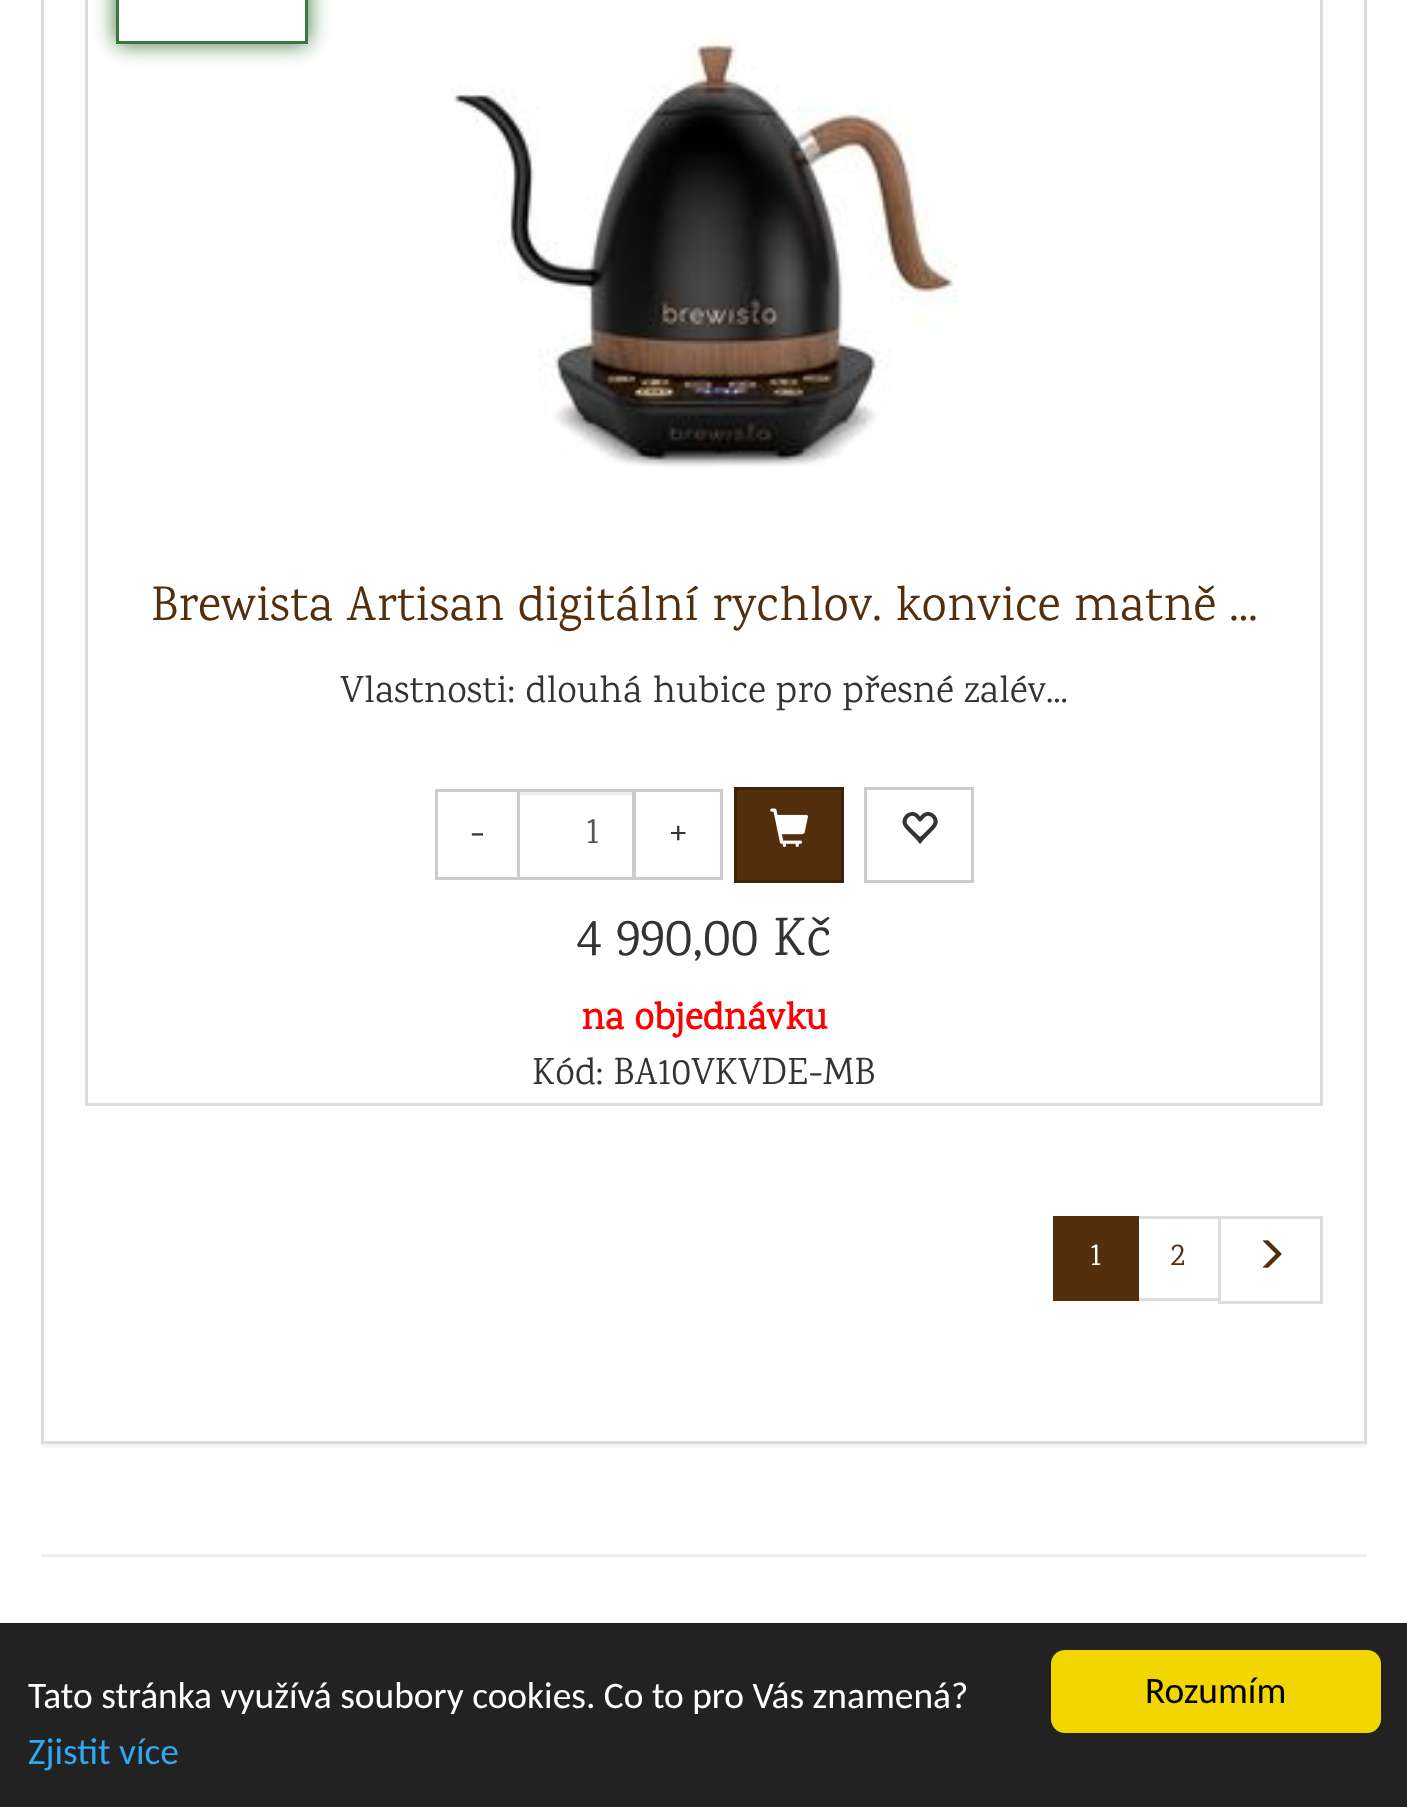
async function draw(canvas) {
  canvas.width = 1407
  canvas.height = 1807
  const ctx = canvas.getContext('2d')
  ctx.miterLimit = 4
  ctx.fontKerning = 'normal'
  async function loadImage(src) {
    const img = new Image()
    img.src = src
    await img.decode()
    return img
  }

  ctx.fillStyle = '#fff'
  ctx.fillRect(0, 0, 1407, 1807)
  ctx.fillStyle = '#0000000d'
  ctx.filter = 'blur(1.5px)'
  ctx.beginPath()
  ctx.rect(41, -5, 1326, 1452)
  ctx.fill()
  ctx.filter = 'none'
  ctx.fillStyle = '#fff'
  ctx.beginPath()
  ctx.rect(42.5, -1.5, 1323, 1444)
  ctx.fill()
  ctx.strokeStyle = '#ddd'
  ctx.lineWidth = 3
  ctx.stroke()
  ctx.strokeRect(86.5, -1.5, 1235, 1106)
  ctx.save()
  ctx.beginPath()
  ctx.moveTo(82, 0)
  ctx.lineTo(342, 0)
  ctx.lineTo(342, 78)
  ctx.lineTo(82, 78)
  ctx.closePath()
  ctx.moveTo(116, -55)
  ctx.lineTo(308, -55)
  ctx.lineTo(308, 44)
  ctx.lineTo(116, 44)
  ctx.closePath()
  ctx.clip('evenodd')
  ctx.fillStyle = '#3c763d'
  ctx.filter = 'blur(11px)'
  ctx.beginPath()
  ctx.rect(116, -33, 192, 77)
  ctx.fill()
  ctx.filter = 'none'
  ctx.restore()
  ctx.strokeStyle = '#3c763d'
  ctx.strokeRect(117.5, -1.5, 189, 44)
  ctx.drawImage(await loadImage('image0.png'), 451, 37, 507, 431)
  ctx.font = '49.5px Karma'
  ctx.fillStyle = '#532f0d'
  ctx.fillText('Brewista Artisan digitální rychlov. konvice matně ...', 151, 620)
  ctx.font = '38.5px Karma'
  ctx.fillStyle = '#333'
  ctx.fillText('Vlastnosti: dlouhá hubice pro přesné zalév...', 340, 702)
  ctx.strokeStyle = '#ccc'
  ctx.strokeRect(436.5, 790.5, 82, 88)
  ctx.fillText('-', 470, 844)
  ctx.fillStyle = '#ececec'
  ctx.fillRect(520, 792, 113, 3)
  ctx.strokeRect(634.5, 790.5, 87, 88)
  ctx.strokeRect(518.5, 790.5, 115, 88)
  ctx.fillStyle = '#555'
  ctx.fillText('1', 586, 843)
  ctx.fillStyle = '#333'
  ctx.fillText('+', 669, 844)
  ctx.fillStyle = '#532f0d'
  ctx.beginPath()
  ctx.rect(735.5, 788.5, 107, 93)
  ctx.fill()
  ctx.strokeStyle = '#3d230a'
  ctx.stroke()
  ctx.drawImage(await loadImage('image1.png'), 770, 808, 38, 39)
  ctx.strokeStyle = '#ccc'
  ctx.strokeRect(865.5, 788.5, 107, 93)
  ctx.drawImage(await loadImage('image2.png'), 902, 812, 36, 32)
  ctx.font = '55px Karma'
  ctx.fillStyle = '#333'
  ctx.fillText('4 990,00 Kč', 576, 955)
  ctx.font = 'bold 38.5px Karma'
  ctx.fillStyle = '#f00'
  ctx.fillText('na objednávku', 581, 1029)
  ctx.font = '38.5px Karma'
  ctx.fillStyle = '#333'
  ctx.fillText('Kód: BA10VKVDE-MB', 532, 1084)
  ctx.strokeStyle = '#ddd'
  ctx.strokeRect(1137.5, 1217.5, 82, 82)
  ctx.fillStyle = '#532f0d'
  ctx.fillRect(1053, 1216, 86, 85)
  ctx.font = '33px Karma'
  ctx.fillStyle = '#fff'
  ctx.fillText('1', 1090, 1265)
  ctx.fillStyle = '#532f0d'
  ctx.fillText('2', 1170, 1265)
  ctx.strokeRect(1219.5, 1217.5, 102, 85)
  ctx.drawImage(await loadImage('image3.png'), 1262, 1240, 20, 28)
  ctx.fillStyle = '#eee'
  ctx.fillRect(41, 1554, 1326, 3)
  ctx.fillStyle = '#222'
  ctx.fillRect(0, 1623, 1407, 184)
  ctx.font = '37.4px Carlito'
  ctx.fillStyle = '#fff'
  ctx.fillText('Tato stránka využívá soubory cookies. Co to pro Vás znamená?', 28, 1708)
  ctx.fillStyle = '#31a8f0'
  ctx.fillText('Zjistit více', 28, 1764)
  ctx.fillStyle = '#f1d600'
  ctx.beginPath()
  ctx.roundRect(1051, 1650, 330, 83, 14)
  ctx.fill()
  ctx.fillStyle = '#000'
  ctx.fillText('Rozumím', 1145, 1703)
}

draw(document.querySelector('canvas'))
